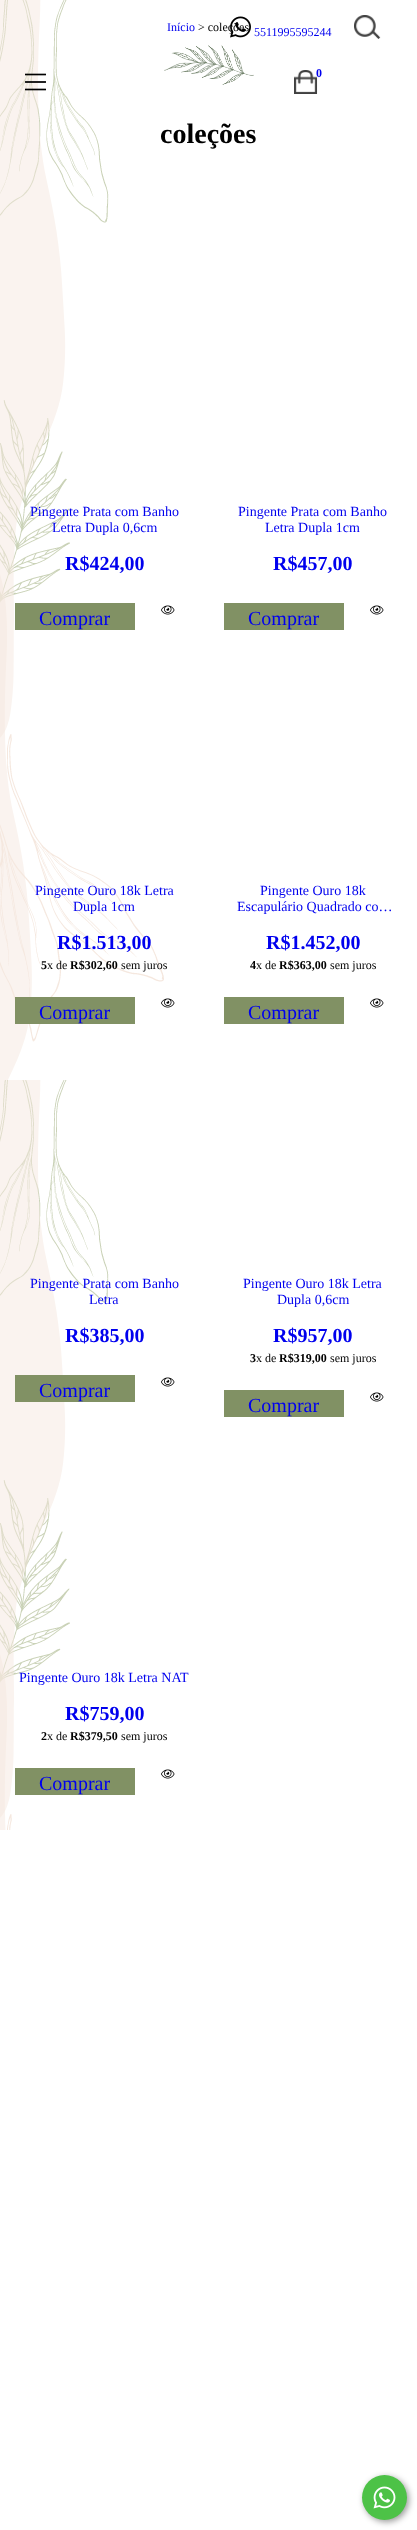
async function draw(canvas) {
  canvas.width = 417
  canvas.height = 2530
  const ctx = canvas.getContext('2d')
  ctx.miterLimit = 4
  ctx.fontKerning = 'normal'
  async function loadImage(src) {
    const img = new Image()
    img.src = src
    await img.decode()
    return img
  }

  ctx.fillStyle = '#fff'
  ctx.fillRect(0, 0, 417, 2530)
  ctx.drawImage(await loadImage('image0.png'), 0, 0, 164, 1830)
  ctx.font = '12px Liberation Serif'
  ctx.fillStyle = '#00e'
  ctx.fillText('Início', 167, 31)
  ctx.fillStyle = '#000'
  ctx.fillText('> coleções', 198, 31)
  ctx.drawImage(await loadImage('image1.png'), 164, 45, 90, 40)
  ctx.font = 'bold 28px Liberation Serif'
  ctx.fillText('coleções', 160, 143)
  ctx.font = '14px Liberation Serif'
  ctx.fillStyle = '#00e'
  ctx.fillText('Pingente Prata com Banho', 30, 516)
  ctx.fillText('Letra Dupla 0,6cm', 52, 532)
  ctx.font = 'bold 20px Liberation Serif'
  ctx.fillText('R$424,00', 65, 570)
  ctx.drawImage(await loadImage('image2.png'), 161, 605, 14, 10)
  ctx.fillStyle = '#819164'
  ctx.fillRect(15, 603, 120, 27)
  ctx.font = '20px Liberation Serif'
  ctx.fillStyle = '#00e'
  ctx.fillText('Comprar', 39, 625)
  ctx.font = '14px Liberation Serif'
  ctx.fillText('Pingente Prata com Banho', 238, 516)
  ctx.fillText('Letra Dupla 1cm', 265, 532)
  ctx.font = 'bold 20px Liberation Serif'
  ctx.fillText('R$457,00', 273, 570)
  ctx.drawImage(await loadImage('image2.png'), 370, 605, 14, 10)
  ctx.fillStyle = '#819164'
  ctx.fillRect(224, 603, 120, 27)
  ctx.font = '20px Liberation Serif'
  ctx.fillStyle = '#00e'
  ctx.fillText('Comprar', 248, 625)
  ctx.font = '14px Liberation Serif'
  ctx.fillText('Pingente Ouro 18k Letra', 35, 895)
  ctx.fillText('Dupla 1cm', 73, 911)
  ctx.font = 'bold 20px Liberation Serif'
  ctx.fillText('R$1.513,00', 57, 949)
  ctx.font = 'bold 12px Liberation Serif'
  ctx.fillStyle = '#000'
  ctx.fillText('5', 41, 969)
  ctx.font = '12px Liberation Serif'
  ctx.fillText('x de', 47, 969)
  ctx.font = 'bold 12px Liberation Serif'
  ctx.fillText('R$302,60', 70, 969)
  ctx.font = '12px Liberation Serif'
  ctx.fillText('sem juros', 121, 969)
  ctx.drawImage(await loadImage('image2.png'), 161, 998, 14, 10)
  ctx.fillStyle = '#819164'
  ctx.fillRect(15, 997, 120, 27)
  ctx.font = '20px Liberation Serif'
  ctx.fillStyle = '#00e'
  ctx.fillText('Comprar', 39, 1019)
  ctx.font = '14px Liberation Serif'
  ctx.fillText('Pingente Ouro 18k', 260, 895)
  ctx.fillText('Escapulário Quadrado co…', 237, 911)
  ctx.font = 'bold 20px Liberation Serif'
  ctx.fillText('R$1.452,00', 266, 949)
  ctx.font = 'bold 12px Liberation Serif'
  ctx.fillStyle = '#000'
  ctx.fillText('4', 250, 969)
  ctx.font = '12px Liberation Serif'
  ctx.fillText('x de', 256, 969)
  ctx.font = 'bold 12px Liberation Serif'
  ctx.fillText('R$363,00', 279, 969)
  ctx.font = '12px Liberation Serif'
  ctx.fillText('sem juros', 330, 969)
  ctx.drawImage(await loadImage('image2.png'), 370, 998, 14, 10)
  ctx.fillStyle = '#819164'
  ctx.fillRect(224, 997, 120, 27)
  ctx.font = '20px Liberation Serif'
  ctx.fillStyle = '#00e'
  ctx.fillText('Comprar', 248, 1019)
  ctx.font = '14px Liberation Serif'
  ctx.fillText('Pingente Prata com Banho', 30, 1288)
  ctx.fillText('Letra', 89, 1304)
  ctx.font = 'bold 20px Liberation Serif'
  ctx.fillText('R$385,00', 65, 1342)
  ctx.drawImage(await loadImage('image2.png'), 161, 1377, 14, 10)
  ctx.fillStyle = '#819164'
  ctx.fillRect(15, 1375, 120, 27)
  ctx.font = '20px Liberation Serif'
  ctx.fillStyle = '#00e'
  ctx.fillText('Comprar', 39, 1397)
  ctx.font = '14px Liberation Serif'
  ctx.fillText('Pingente Ouro 18k Letra', 243, 1288)
  ctx.fillText('Dupla 0,6cm', 277, 1304)
  ctx.font = 'bold 20px Liberation Serif'
  ctx.fillText('R$957,00', 273, 1342)
  ctx.font = 'bold 12px Liberation Serif'
  ctx.fillStyle = '#000'
  ctx.fillText('3', 250, 1362)
  ctx.font = '12px Liberation Serif'
  ctx.fillText('x de', 256, 1362)
  ctx.font = 'bold 12px Liberation Serif'
  ctx.fillText('R$319,00', 279, 1362)
  ctx.font = '12px Liberation Serif'
  ctx.fillText('sem juros', 330, 1362)
  ctx.drawImage(await loadImage('image2.png'), 370, 1392, 14, 10)
  ctx.fillStyle = '#819164'
  ctx.fillRect(224, 1390, 120, 27)
  ctx.font = '20px Liberation Serif'
  ctx.fillStyle = '#00e'
  ctx.fillText('Comprar', 248, 1412)
  ctx.font = '14px Liberation Serif'
  ctx.fillText('Pingente Ouro 18k Letra NAT', 19, 1682)
  ctx.font = 'bold 20px Liberation Serif'
  ctx.fillText('R$759,00', 65, 1720)
  ctx.font = 'bold 12px Liberation Serif'
  ctx.fillStyle = '#000'
  ctx.fillText('2', 41, 1740)
  ctx.font = '12px Liberation Serif'
  ctx.fillText('x de', 47, 1740)
  ctx.font = 'bold 12px Liberation Serif'
  ctx.fillText('R$379,50', 70, 1740)
  ctx.font = '12px Liberation Serif'
  ctx.fillText('sem juros', 121, 1740)
  ctx.drawImage(await loadImage('image2.png'), 161, 1769, 14, 10)
  ctx.fillStyle = '#819164'
  ctx.fillRect(15, 1768, 120, 27)
  ctx.font = '20px Liberation Serif'
  ctx.fillStyle = '#00e'
  ctx.fillText('Comprar', 39, 1790)
  ctx.drawImage(await loadImage('image3.png'), 230, 16, 21, 22)
  ctx.font = '12px Liberation Serif'
  ctx.fillText('5511995595244', 254, 36)
  ctx.drawImage(await loadImage('image4.png'), 354, 15, 27, 24)
  ctx.drawImage(await loadImage('image5.png'), 294, 70, 24, 24)
  ctx.font = 'bold 12px Liberation Serif'
  ctx.fillText('0', 316, 77)
  ctx.drawImage(await loadImage('image6.png'), 25, 73, 21, 18)
  ctx.fillStyle = '#00000066'
  ctx.filter = 'blur(3px)'
  ctx.beginPath()
  ctx.roundRect(364, 2477, 45, 45, 22.5)
  ctx.fill()
  ctx.filter = 'none'
  ctx.fillStyle = '#4dc247'
  ctx.beginPath()
  ctx.arc(384.5, 2497.5, 22.5, 0, 2 * Math.PI)
  ctx.fill()
  ctx.drawImage(await loadImage('image7.png'), 373, 2486, 23, 23)
}

draw(document.querySelector('canvas'))
